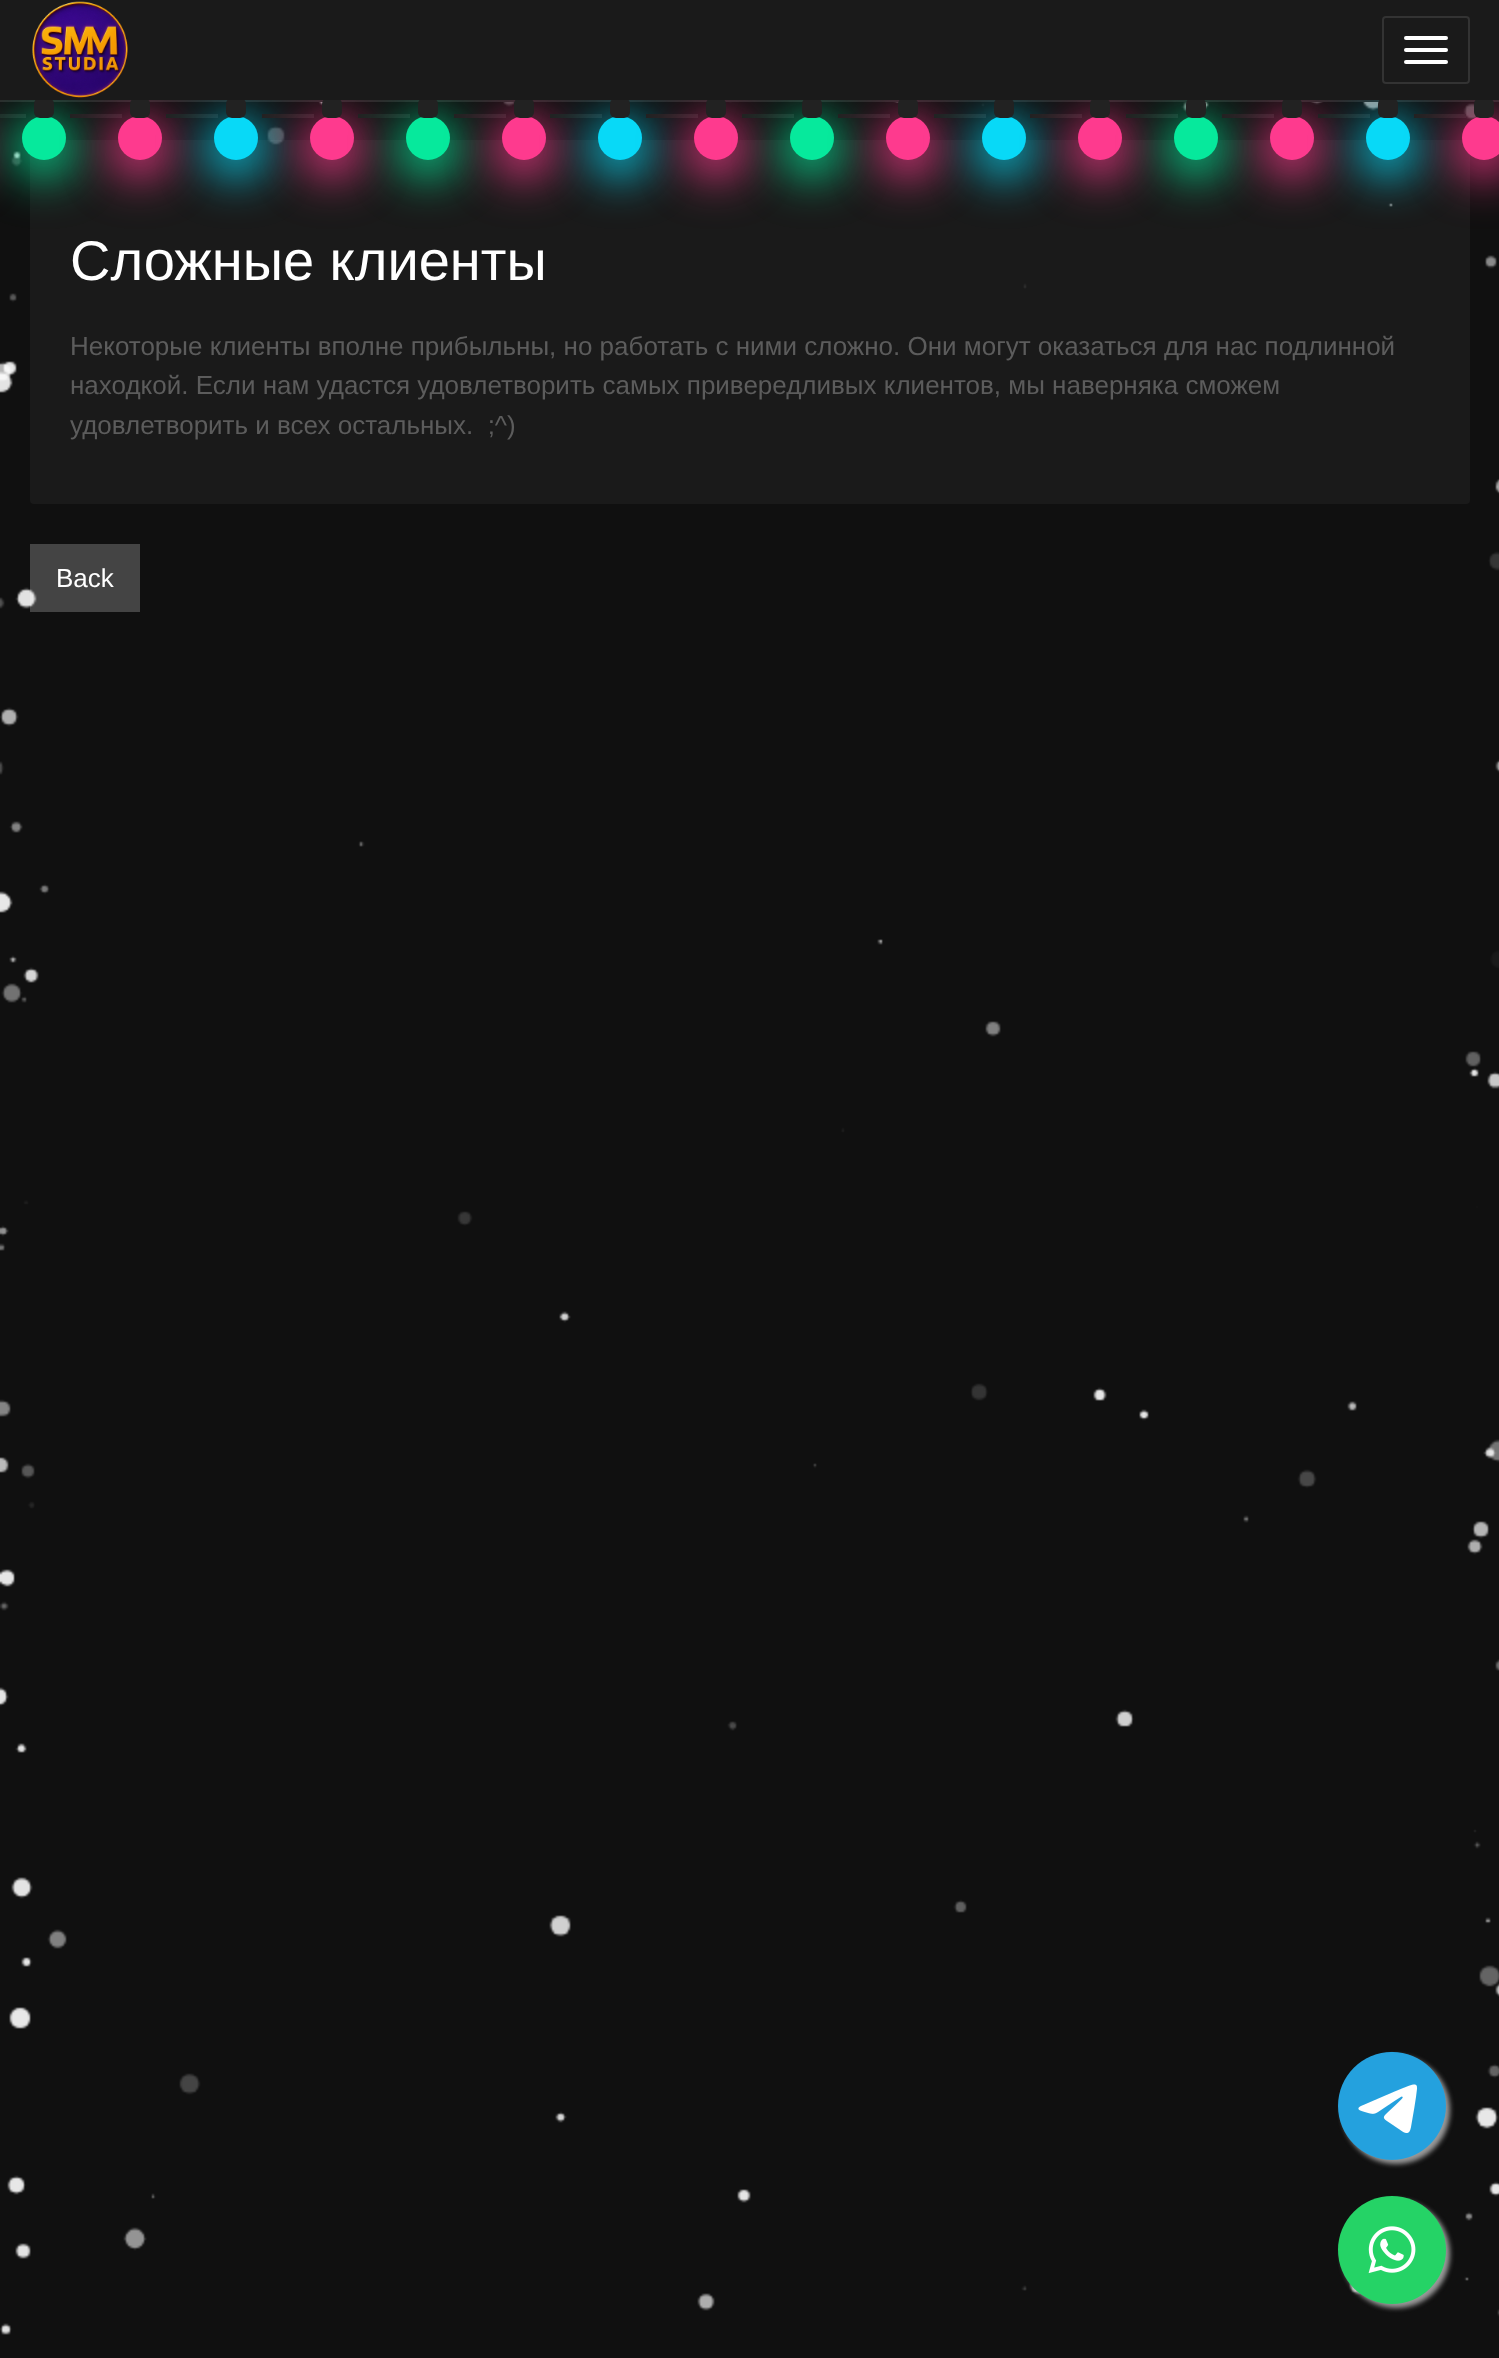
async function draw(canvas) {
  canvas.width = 1499
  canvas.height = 2358
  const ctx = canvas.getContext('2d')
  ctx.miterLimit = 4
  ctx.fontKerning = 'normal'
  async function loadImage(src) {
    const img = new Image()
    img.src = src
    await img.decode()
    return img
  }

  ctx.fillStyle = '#101010'
  ctx.fillRect(0, 0, 1499, 2358)
  ctx.fillStyle = '#1a1a1a'
  ctx.fillRect(0, 0, 1499, 100)
  ctx.fillStyle = '#292929'
  ctx.fillRect(0, 100, 1499, 2)
  ctx.drawImage(await loadImage('image0.png'), 32, 1, 96, 97)
  ctx.beginPath()
  ctx.roundRect(1383, 17, 86, 66, 3)
  ctx.strokeStyle = '#333'
  ctx.lineWidth = 2
  ctx.stroke()
  ctx.fillStyle = '#fff'
  ctx.beginPath()
  ctx.roundRect(1404, 36, 44, 4, 2)
  ctx.fill()
  ctx.beginPath()
  ctx.roundRect(1404, 48, 44, 4, 2)
  ctx.fill()
  ctx.beginPath()
  ctx.roundRect(1404, 60, 44, 4, 2)
  ctx.fill()
  ctx.fillStyle = '#1a1a1a'
  ctx.beginPath()
  ctx.roundRect(30, 140, 1440, 364, 4)
  ctx.fill()
  ctx.font = '56px Liberation Sans'
  ctx.fillStyle = '#fff'
  ctx.fillText('Сложные клиенты', 70, 280)
  ctx.font = '26px Liberation Sans'
  ctx.fillStyle = '#5c5c5c'
  ctx.fillText('Некоторые клиенты вполне прибыльны, но работать с ними сложно. Они могут оказаться для нас подлинной', 70, 355)
  ctx.fillText('находкой. Если нам удастся удовлетворить самых привередливых клиентов, мы наверняка сможем', 70, 394)
  ctx.fillText('удовлетворить и всех остальных.  ;^)', 70, 434)
  ctx.fillStyle = '#444'
  ctx.fillRect(30, 544, 110, 68)
  ctx.fillStyle = '#fff'
  ctx.fillText('Back', 56, 587)
  ctx.drawImage(await loadImage('image1.png'), 0, 102, 1499, 2233)
  ctx.save()
  ctx.beginPath()
  ctx.rect(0, 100, 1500, 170)
  ctx.clip()
  ctx.fillStyle = '#fe3a8e'
  ctx.filter = 'blur(24px)'
  ctx.beginPath()
  ctx.roundRect(-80, 120, 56, 56, 28)
  ctx.fill()
  ctx.filter = 'none'
  ctx.restore()
  ctx.fillStyle = '#222'
  ctx.fillRect(0, 114, 26, 4)
  ctx.save()
  ctx.beginPath()
  ctx.rect(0, 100, 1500, 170)
  ctx.clip()
  ctx.fillStyle = '#06e99c'
  ctx.filter = 'blur(24px)'
  ctx.beginPath()
  ctx.roundRect(16, 120, 56, 56, 28)
  ctx.fill()
  ctx.filter = 'none'
  ctx.restore()
  ctx.fillStyle = '#06e99c'
  ctx.beginPath()
  ctx.arc(44, 138, 22, 0, 2 * Math.PI)
  ctx.fill()
  ctx.save()
  ctx.beginPath()
  ctx.rect(0, 100, 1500, 170)
  ctx.clip()
  ctx.fillStyle = '#222'
  ctx.beginPath()
  ctx.roundRect(34, 98, 20, 20, 6)
  ctx.fill()
  ctx.restore()
  ctx.fillStyle = '#222'
  ctx.fillRect(70, 114, 52, 4)
  ctx.save()
  ctx.beginPath()
  ctx.rect(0, 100, 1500, 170)
  ctx.clip()
  ctx.fillStyle = '#fe3a8e'
  ctx.filter = 'blur(24px)'
  ctx.beginPath()
  ctx.roundRect(112, 120, 56, 56, 28)
  ctx.fill()
  ctx.filter = 'none'
  ctx.restore()
  ctx.fillStyle = '#fe3a8e'
  ctx.beginPath()
  ctx.arc(140, 138, 22, 0, 2 * Math.PI)
  ctx.fill()
  ctx.save()
  ctx.beginPath()
  ctx.rect(0, 100, 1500, 170)
  ctx.clip()
  ctx.fillStyle = '#222'
  ctx.beginPath()
  ctx.roundRect(130, 98, 20, 20, 6)
  ctx.fill()
  ctx.restore()
  ctx.fillStyle = '#222'
  ctx.fillRect(166, 114, 52, 4)
  ctx.save()
  ctx.beginPath()
  ctx.rect(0, 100, 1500, 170)
  ctx.clip()
  ctx.fillStyle = '#08d9f7'
  ctx.filter = 'blur(24px)'
  ctx.beginPath()
  ctx.roundRect(208, 120, 56, 56, 28)
  ctx.fill()
  ctx.filter = 'none'
  ctx.restore()
  ctx.fillStyle = '#08d9f7'
  ctx.beginPath()
  ctx.arc(236, 138, 22, 0, 2 * Math.PI)
  ctx.fill()
  ctx.save()
  ctx.beginPath()
  ctx.rect(0, 100, 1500, 170)
  ctx.clip()
  ctx.fillStyle = '#222'
  ctx.beginPath()
  ctx.roundRect(226, 98, 20, 20, 6)
  ctx.fill()
  ctx.restore()
  ctx.fillStyle = '#222'
  ctx.fillRect(262, 114, 52, 4)
  ctx.save()
  ctx.beginPath()
  ctx.rect(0, 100, 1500, 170)
  ctx.clip()
  ctx.fillStyle = '#fe3a8e'
  ctx.filter = 'blur(24px)'
  ctx.beginPath()
  ctx.roundRect(304, 120, 56, 56, 28)
  ctx.fill()
  ctx.filter = 'none'
  ctx.restore()
  ctx.fillStyle = '#fe3a8e'
  ctx.beginPath()
  ctx.arc(332, 138, 22, 0, 2 * Math.PI)
  ctx.fill()
  ctx.save()
  ctx.beginPath()
  ctx.rect(0, 100, 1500, 170)
  ctx.clip()
  ctx.fillStyle = '#222'
  ctx.beginPath()
  ctx.roundRect(322, 98, 20, 20, 6)
  ctx.fill()
  ctx.restore()
  ctx.fillStyle = '#222'
  ctx.fillRect(358, 114, 52, 4)
  ctx.save()
  ctx.beginPath()
  ctx.rect(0, 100, 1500, 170)
  ctx.clip()
  ctx.fillStyle = '#06e99c'
  ctx.filter = 'blur(24px)'
  ctx.beginPath()
  ctx.roundRect(400, 120, 56, 56, 28)
  ctx.fill()
  ctx.filter = 'none'
  ctx.restore()
  ctx.fillStyle = '#06e99c'
  ctx.beginPath()
  ctx.arc(428, 138, 22, 0, 2 * Math.PI)
  ctx.fill()
  ctx.save()
  ctx.beginPath()
  ctx.rect(0, 100, 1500, 170)
  ctx.clip()
  ctx.fillStyle = '#222'
  ctx.beginPath()
  ctx.roundRect(418, 98, 20, 20, 6)
  ctx.fill()
  ctx.restore()
  ctx.fillStyle = '#222'
  ctx.fillRect(454, 114, 52, 4)
  ctx.save()
  ctx.beginPath()
  ctx.rect(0, 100, 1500, 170)
  ctx.clip()
  ctx.fillStyle = '#fe3a8e'
  ctx.filter = 'blur(24px)'
  ctx.beginPath()
  ctx.roundRect(496, 120, 56, 56, 28)
  ctx.fill()
  ctx.filter = 'none'
  ctx.restore()
  ctx.fillStyle = '#fe3a8e'
  ctx.beginPath()
  ctx.arc(524, 138, 22, 0, 2 * Math.PI)
  ctx.fill()
  ctx.save()
  ctx.beginPath()
  ctx.rect(0, 100, 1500, 170)
  ctx.clip()
  ctx.fillStyle = '#222'
  ctx.beginPath()
  ctx.roundRect(514, 98, 20, 20, 6)
  ctx.fill()
  ctx.restore()
  ctx.fillStyle = '#222'
  ctx.fillRect(550, 114, 52, 4)
  ctx.save()
  ctx.beginPath()
  ctx.rect(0, 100, 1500, 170)
  ctx.clip()
  ctx.fillStyle = '#08d9f7'
  ctx.filter = 'blur(24px)'
  ctx.beginPath()
  ctx.roundRect(592, 120, 56, 56, 28)
  ctx.fill()
  ctx.filter = 'none'
  ctx.restore()
  ctx.fillStyle = '#08d9f7'
  ctx.beginPath()
  ctx.arc(620, 138, 22, 0, 2 * Math.PI)
  ctx.fill()
  ctx.save()
  ctx.beginPath()
  ctx.rect(0, 100, 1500, 170)
  ctx.clip()
  ctx.fillStyle = '#222'
  ctx.beginPath()
  ctx.roundRect(610, 98, 20, 20, 6)
  ctx.fill()
  ctx.restore()
  ctx.fillStyle = '#222'
  ctx.fillRect(646, 114, 52, 4)
  ctx.save()
  ctx.beginPath()
  ctx.rect(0, 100, 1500, 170)
  ctx.clip()
  ctx.fillStyle = '#fe3a8e'
  ctx.filter = 'blur(24px)'
  ctx.beginPath()
  ctx.roundRect(688, 120, 56, 56, 28)
  ctx.fill()
  ctx.filter = 'none'
  ctx.restore()
  ctx.fillStyle = '#fe3a8e'
  ctx.beginPath()
  ctx.arc(716, 138, 22, 0, 2 * Math.PI)
  ctx.fill()
  ctx.save()
  ctx.beginPath()
  ctx.rect(0, 100, 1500, 170)
  ctx.clip()
  ctx.fillStyle = '#222'
  ctx.beginPath()
  ctx.roundRect(706, 98, 20, 20, 6)
  ctx.fill()
  ctx.restore()
  ctx.fillStyle = '#222'
  ctx.fillRect(742, 114, 52, 4)
  ctx.save()
  ctx.beginPath()
  ctx.rect(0, 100, 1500, 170)
  ctx.clip()
  ctx.fillStyle = '#06e99c'
  ctx.filter = 'blur(24px)'
  ctx.beginPath()
  ctx.roundRect(784, 120, 56, 56, 28)
  ctx.fill()
  ctx.filter = 'none'
  ctx.restore()
  ctx.fillStyle = '#06e99c'
  ctx.beginPath()
  ctx.arc(812, 138, 22, 0, 2 * Math.PI)
  ctx.fill()
  ctx.save()
  ctx.beginPath()
  ctx.rect(0, 100, 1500, 170)
  ctx.clip()
  ctx.fillStyle = '#222'
  ctx.beginPath()
  ctx.roundRect(802, 98, 20, 20, 6)
  ctx.fill()
  ctx.restore()
  ctx.fillStyle = '#222'
  ctx.fillRect(838, 114, 52, 4)
  ctx.save()
  ctx.beginPath()
  ctx.rect(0, 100, 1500, 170)
  ctx.clip()
  ctx.fillStyle = '#fe3a8e'
  ctx.filter = 'blur(24px)'
  ctx.beginPath()
  ctx.roundRect(880, 120, 56, 56, 28)
  ctx.fill()
  ctx.filter = 'none'
  ctx.restore()
  ctx.fillStyle = '#fe3a8e'
  ctx.beginPath()
  ctx.arc(908, 138, 22, 0, 2 * Math.PI)
  ctx.fill()
  ctx.save()
  ctx.beginPath()
  ctx.rect(0, 100, 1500, 170)
  ctx.clip()
  ctx.fillStyle = '#222'
  ctx.beginPath()
  ctx.roundRect(898, 98, 20, 20, 6)
  ctx.fill()
  ctx.restore()
  ctx.fillStyle = '#222'
  ctx.fillRect(934, 114, 52, 4)
  ctx.save()
  ctx.beginPath()
  ctx.rect(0, 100, 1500, 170)
  ctx.clip()
  ctx.fillStyle = '#08d9f7'
  ctx.filter = 'blur(24px)'
  ctx.beginPath()
  ctx.roundRect(976, 120, 56, 56, 28)
  ctx.fill()
  ctx.filter = 'none'
  ctx.restore()
  ctx.fillStyle = '#08d9f7'
  ctx.beginPath()
  ctx.arc(1004, 138, 22, 0, 2 * Math.PI)
  ctx.fill()
  ctx.save()
  ctx.beginPath()
  ctx.rect(0, 100, 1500, 170)
  ctx.clip()
  ctx.fillStyle = '#222'
  ctx.beginPath()
  ctx.roundRect(994, 98, 20, 20, 6)
  ctx.fill()
  ctx.restore()
  ctx.fillStyle = '#222'
  ctx.fillRect(1030, 114, 52, 4)
  ctx.save()
  ctx.beginPath()
  ctx.rect(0, 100, 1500, 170)
  ctx.clip()
  ctx.fillStyle = '#fe3a8e'
  ctx.filter = 'blur(24px)'
  ctx.beginPath()
  ctx.roundRect(1072, 120, 56, 56, 28)
  ctx.fill()
  ctx.filter = 'none'
  ctx.restore()
  ctx.fillStyle = '#fe3a8e'
  ctx.beginPath()
  ctx.arc(1100, 138, 22, 0, 2 * Math.PI)
  ctx.fill()
  ctx.save()
  ctx.beginPath()
  ctx.rect(0, 100, 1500, 170)
  ctx.clip()
  ctx.fillStyle = '#222'
  ctx.beginPath()
  ctx.roundRect(1090, 98, 20, 20, 6)
  ctx.fill()
  ctx.restore()
  ctx.fillStyle = '#222'
  ctx.fillRect(1126, 114, 52, 4)
  ctx.save()
  ctx.beginPath()
  ctx.rect(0, 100, 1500, 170)
  ctx.clip()
  ctx.fillStyle = '#06e99c'
  ctx.filter = 'blur(24px)'
  ctx.beginPath()
  ctx.roundRect(1168, 120, 56, 56, 28)
  ctx.fill()
  ctx.filter = 'none'
  ctx.restore()
  ctx.fillStyle = '#06e99c'
  ctx.beginPath()
  ctx.arc(1196, 138, 22, 0, 2 * Math.PI)
  ctx.fill()
  ctx.save()
  ctx.beginPath()
  ctx.rect(0, 100, 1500, 170)
  ctx.clip()
  ctx.fillStyle = '#222'
  ctx.beginPath()
  ctx.roundRect(1186, 98, 20, 20, 6)
  ctx.fill()
  ctx.restore()
  ctx.fillStyle = '#222'
  ctx.fillRect(1222, 114, 52, 4)
  ctx.save()
  ctx.beginPath()
  ctx.rect(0, 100, 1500, 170)
  ctx.clip()
  ctx.fillStyle = '#fe3a8e'
  ctx.filter = 'blur(24px)'
  ctx.beginPath()
  ctx.roundRect(1264, 120, 56, 56, 28)
  ctx.fill()
  ctx.filter = 'none'
  ctx.restore()
  ctx.fillStyle = '#fe3a8e'
  ctx.beginPath()
  ctx.arc(1292, 138, 22, 0, 2 * Math.PI)
  ctx.fill()
  ctx.save()
  ctx.beginPath()
  ctx.rect(0, 100, 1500, 170)
  ctx.clip()
  ctx.fillStyle = '#222'
  ctx.beginPath()
  ctx.roundRect(1282, 98, 20, 20, 6)
  ctx.fill()
  ctx.restore()
  ctx.fillStyle = '#222'
  ctx.fillRect(1318, 114, 52, 4)
  ctx.save()
  ctx.beginPath()
  ctx.rect(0, 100, 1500, 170)
  ctx.clip()
  ctx.fillStyle = '#08d9f7'
  ctx.filter = 'blur(24px)'
  ctx.beginPath()
  ctx.roundRect(1360, 120, 56, 56, 28)
  ctx.fill()
  ctx.filter = 'none'
  ctx.restore()
  ctx.fillStyle = '#08d9f7'
  ctx.beginPath()
  ctx.arc(1388, 138, 22, 0, 2 * Math.PI)
  ctx.fill()
  ctx.save()
  ctx.beginPath()
  ctx.rect(0, 100, 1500, 170)
  ctx.clip()
  ctx.fillStyle = '#222'
  ctx.beginPath()
  ctx.roundRect(1378, 98, 20, 20, 6)
  ctx.fill()
  ctx.restore()
  ctx.fillStyle = '#222'
  ctx.fillRect(1414, 114, 52, 4)
  ctx.save()
  ctx.beginPath()
  ctx.rect(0, 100, 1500, 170)
  ctx.clip()
  ctx.fillStyle = '#fe3a8e'
  ctx.filter = 'blur(24px)'
  ctx.beginPath()
  ctx.roundRect(1456, 120, 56, 56, 28)
  ctx.fill()
  ctx.filter = 'none'
  ctx.restore()
  ctx.fillStyle = '#fe3a8e'
  ctx.beginPath()
  ctx.arc(1484, 138, 22, 0, 2 * Math.PI)
  ctx.fill()
  ctx.save()
  ctx.beginPath()
  ctx.rect(0, 100, 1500, 170)
  ctx.clip()
  ctx.fillStyle = '#222'
  ctx.beginPath()
  ctx.roundRect(1474, 98, 20, 20, 6)
  ctx.fill()
  ctx.restore()
  ctx.fillStyle = '#999'
  ctx.filter = 'blur(2.5px)'
  ctx.beginPath()
  ctx.roundRect(1342, 2056, 108, 108, 54)
  ctx.fill()
  ctx.filter = 'none'
  ctx.fillStyle = '#fff'
  ctx.fillRect(1358, 2084, 60, 49)
  ctx.drawImage(await loadImage('image2.png'), 1338, 2051, 108, 109)
  ctx.fillStyle = '#999'
  ctx.filter = 'blur(2.5px)'
  ctx.beginPath()
  ctx.roundRect(1342, 2200, 108, 108, 54)
  ctx.fill()
  ctx.filter = 'none'
  ctx.fillStyle = '#25d366'
  ctx.beginPath()
  ctx.arc(1392, 2250, 54, 0, 2 * Math.PI)
  ctx.fill()
  ctx.drawImage(await loadImage('image3.png'), 1368, 2226, 48, 48)
}

draw(document.querySelector('canvas'))
